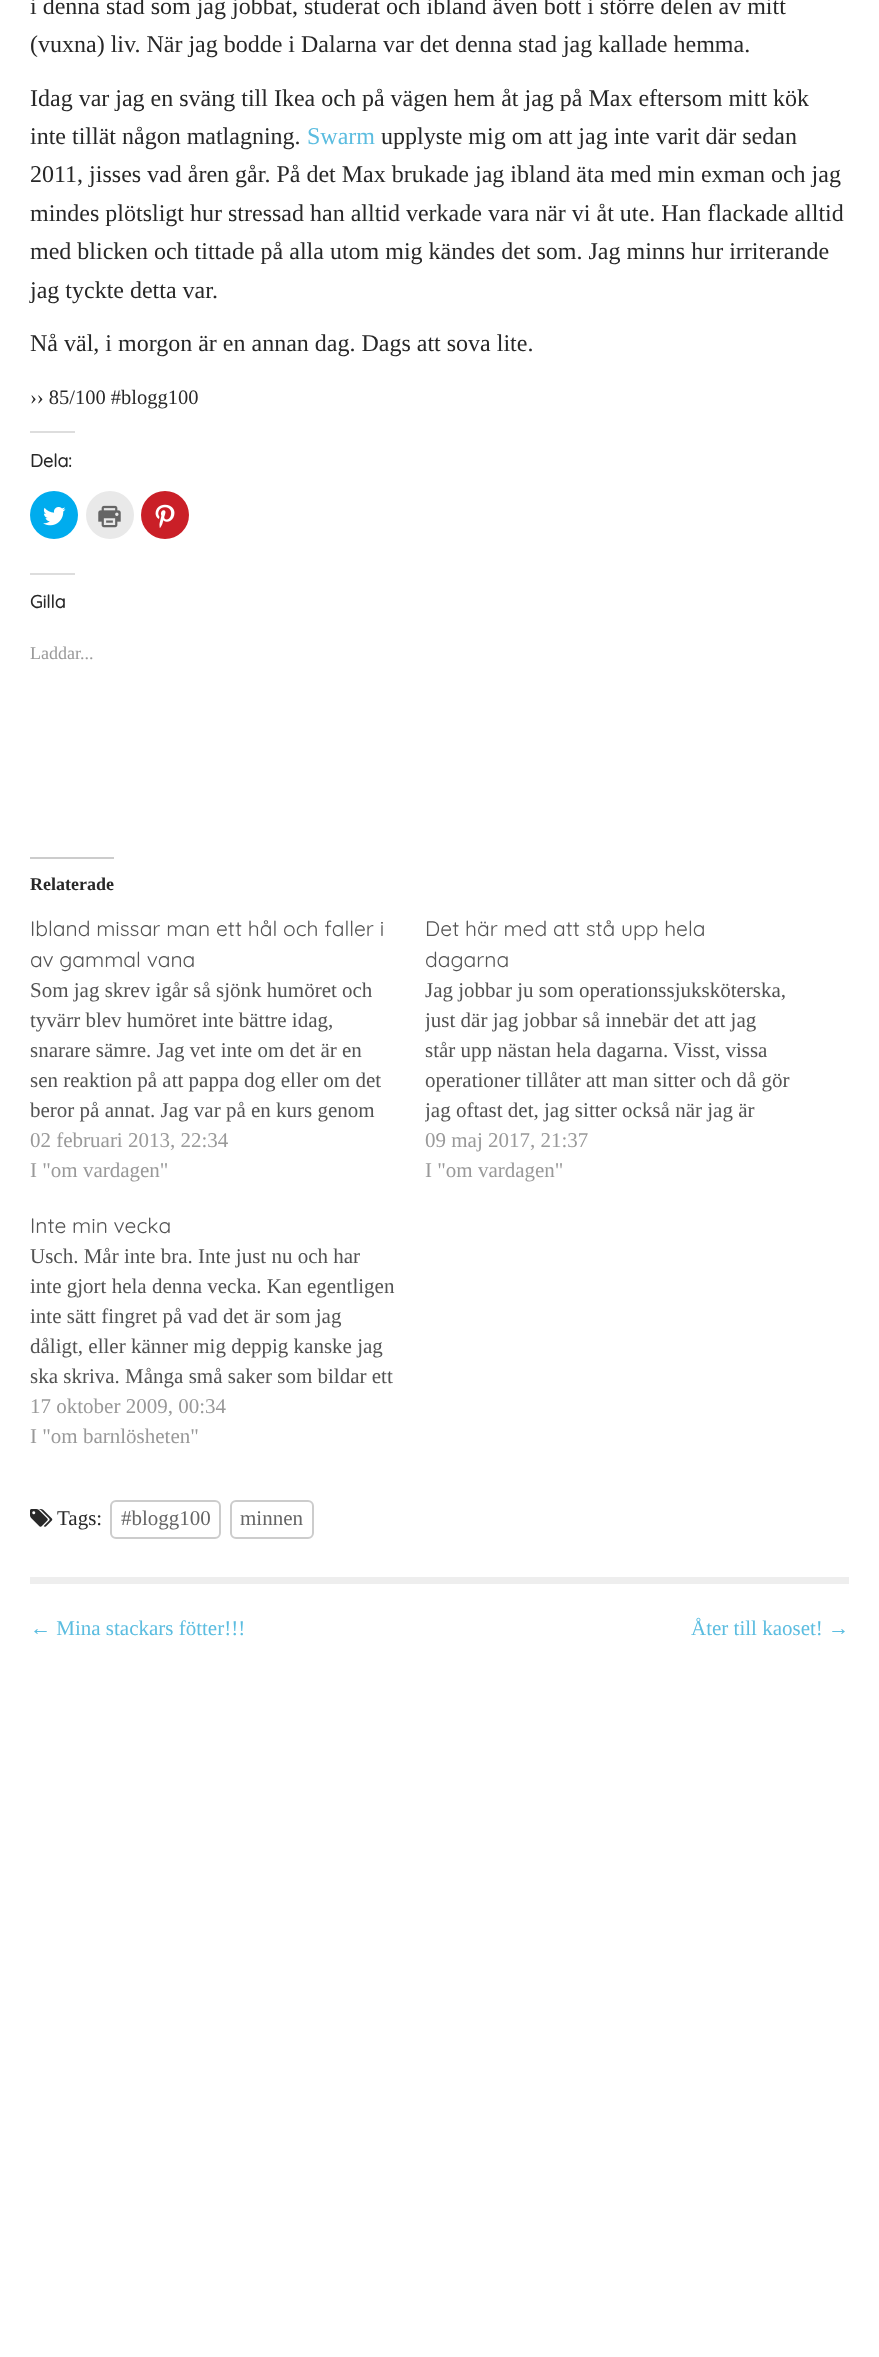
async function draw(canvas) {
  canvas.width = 879
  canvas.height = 2357
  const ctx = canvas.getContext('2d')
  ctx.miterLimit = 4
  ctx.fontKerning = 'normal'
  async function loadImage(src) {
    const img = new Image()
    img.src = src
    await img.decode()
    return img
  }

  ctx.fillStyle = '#fff'
  ctx.fillRect(0, 0, 879, 2357)
  ctx.fillStyle = '#eee'
  ctx.fillRect(30, 1577, 819, 7)
  ctx.font = '24px Liberation Serif'
  ctx.fillStyle = '#282828'
  ctx.fillText('i denna stad som jag jobbat, studerat och ibland även bott i större delen av mitt', 30, 14)
  ctx.fillText('(vuxna) liv. När jag bodde i Dalarna var det denna stad jag kallade hemma.', 30, 52)
  ctx.fillText('Idag var jag en sväng till Ikea och på vägen hem åt jag på Max eftersom mitt kök', 30, 106)
  ctx.fillText('inte tillät någon matlagning.', 30, 144)
  ctx.fillStyle = '#5cbde0'
  ctx.fillText('Swarm', 307, 144)
  ctx.fillStyle = '#282828'
  ctx.fillText('upplyste mig om att jag inte varit där sedan', 381, 144)
  ctx.fillText('2011, jisses vad åren går. På det Max brukade jag ibland äta med min exman och jag', 30, 182)
  ctx.fillText('mindes plötsligt hur stressad han alltid verkade vara när vi åt ute. Han flackade alltid', 30, 221)
  ctx.fillText('med blicken och tittade på alla utom mig kändes det som. Jag minns hur irriterande', 30, 259)
  ctx.fillText('jag tyckte detta var.', 30, 298)
  ctx.fillText('Nå väl, i morgon är en annan dag. Dags att sova lite.', 30, 351)
  ctx.font = '20.5px Liberation Serif'
  ctx.fillText('›› 85/100 #blogg100', 30, 404)
  ctx.fillStyle = '#ddd'
  ctx.fillRect(30, 431, 45, 2)
  ctx.font = 'bold 18px Quicksand'
  ctx.fillStyle = '#282828'
  ctx.fillText('Dela:', 30, 467)
  ctx.fillStyle = '#00acee'
  ctx.beginPath()
  ctx.arc(54, 515, 24, 0, 2 * Math.PI)
  ctx.fill()
  ctx.drawImage(await loadImage('image0.png'), 43, 507, 23, 19)
  ctx.fillStyle = '#e9e9e9'
  ctx.beginPath()
  ctx.arc(110, 515, 24, 0, 2 * Math.PI)
  ctx.fill()
  ctx.drawImage(await loadImage('image1.png'), 98, 505, 23, 23)
  ctx.fillStyle = '#ca1f27'
  ctx.beginPath()
  ctx.arc(165, 515, 24, 0, 2 * Math.PI)
  ctx.fill()
  ctx.drawImage(await loadImage('image2.png'), 155, 504, 20, 24)
  ctx.fillStyle = '#ddd'
  ctx.fillRect(30, 573, 45, 2)
  ctx.fillStyle = '#282828'
  ctx.fillText('Gilla', 30, 608)
  ctx.font = '18px Liberation Serif'
  ctx.fillStyle = '#999'
  ctx.fillText('Laddar...', 30, 659)
  ctx.fillStyle = '#ccc'
  ctx.fillRect(30, 857, 84, 2)
  ctx.font = 'bold 18px Liberation Serif'
  ctx.fillStyle = '#282828'
  ctx.fillText('Relaterade', 30, 890)
  ctx.font = '300 21px Quicksand'
  ctx.fillStyle = '#535353'
  ctx.fillText('Ibland missar man ett hål och faller i', 30, 936)
  ctx.fillText('av gammal vana', 30, 967)
  ctx.font = '21px Liberation Serif'
  ctx.fillText('Som jag skrev igår så sjönk humöret och', 30, 997)
  ctx.fillText('tyvärr blev humöret inte bättre idag,', 30, 1027)
  ctx.fillText('snarare sämre. Jag vet inte om det är en', 30, 1057)
  ctx.fillText('sen reaktion på att pappa dog eller om det', 30, 1087)
  ctx.fillText('beror på annat. Jag var på en kurs genom', 30, 1117)
  ctx.fillStyle = '#999'
  ctx.fillText('02 februari 2013, 22:34', 30, 1147)
  ctx.fillText('I "om vardagen"', 30, 1177)
  ctx.font = '300 21px Quicksand'
  ctx.fillStyle = '#535353'
  ctx.fillText('Det här med att stå upp hela', 425, 936)
  ctx.fillText('dagarna', 425, 967)
  ctx.font = '21px Liberation Serif'
  ctx.fillText('Jag jobbar ju som operationssjuksköterska,', 425, 997)
  ctx.save()
  ctx.beginPath()
  ctx.rect(425, 977, 364, 150)
  ctx.clip()
  ctx.fillText('just där jag jobbar så innebär det att jag', 425, 1027)
  ctx.restore()
  ctx.fillText('står upp nästan hela dagarna. Visst, vissa', 425, 1057)
  ctx.fillText('operationer tillåter att man sitter och då gör', 425, 1087)
  ctx.save()
  ctx.beginPath()
  ctx.rect(425, 977, 364, 150)
  ctx.clip()
  ctx.fillText('jag oftast det, jag sitter också när jag är', 425, 1117)
  ctx.restore()
  ctx.fillStyle = '#999'
  ctx.fillText('09 maj 2017, 21:37', 425, 1147)
  ctx.fillText('I "om vardagen"', 425, 1177)
  ctx.font = '300 21px Quicksand'
  ctx.fillStyle = '#535353'
  ctx.fillText('Inte min vecka', 30, 1233)
  ctx.font = '21px Liberation Serif'
  ctx.fillText('Usch. Mår inte bra. Inte just nu och har', 30, 1263)
  ctx.fillText('inte gjort hela denna vecka. Kan egentligen', 30, 1293)
  ctx.fillText('inte sätt fingret på vad det är som jag', 30, 1323)
  ctx.fillText('dåligt, eller känner mig deppig kanske jag', 30, 1353)
  ctx.fillText('ska skriva. Många små saker som bildar ett', 30, 1383)
  ctx.fillStyle = '#999'
  ctx.fillText('17 oktober 2009, 00:34', 30, 1413)
  ctx.fillText('I "om barnlösheten"', 30, 1443)
  ctx.drawImage(await loadImage('image3.png'), 30, 1509, 23, 18)
  ctx.fillStyle = '#282828'
  ctx.fillText('Tags:', 57, 1525)
  ctx.beginPath()
  ctx.roundRect(111, 1501, 109, 37, 5)
  ctx.strokeStyle = '#ccc'
  ctx.lineWidth = 2
  ctx.stroke()
  ctx.fillStyle = '#666'
  ctx.fillText('#blogg100', 121, 1525)
  ctx.beginPath()
  ctx.roundRect(231, 1501, 82, 37, 5)
  ctx.stroke()
  ctx.fillText('minnen', 240, 1525)
  ctx.fillStyle = '#5cbde0'
  ctx.fillText('← Mina stackars fötter!!!', 30, 1635)
  ctx.fillText('Åter till kaoset! →', 691, 1635)
}

draw(document.querySelector('canvas'))
